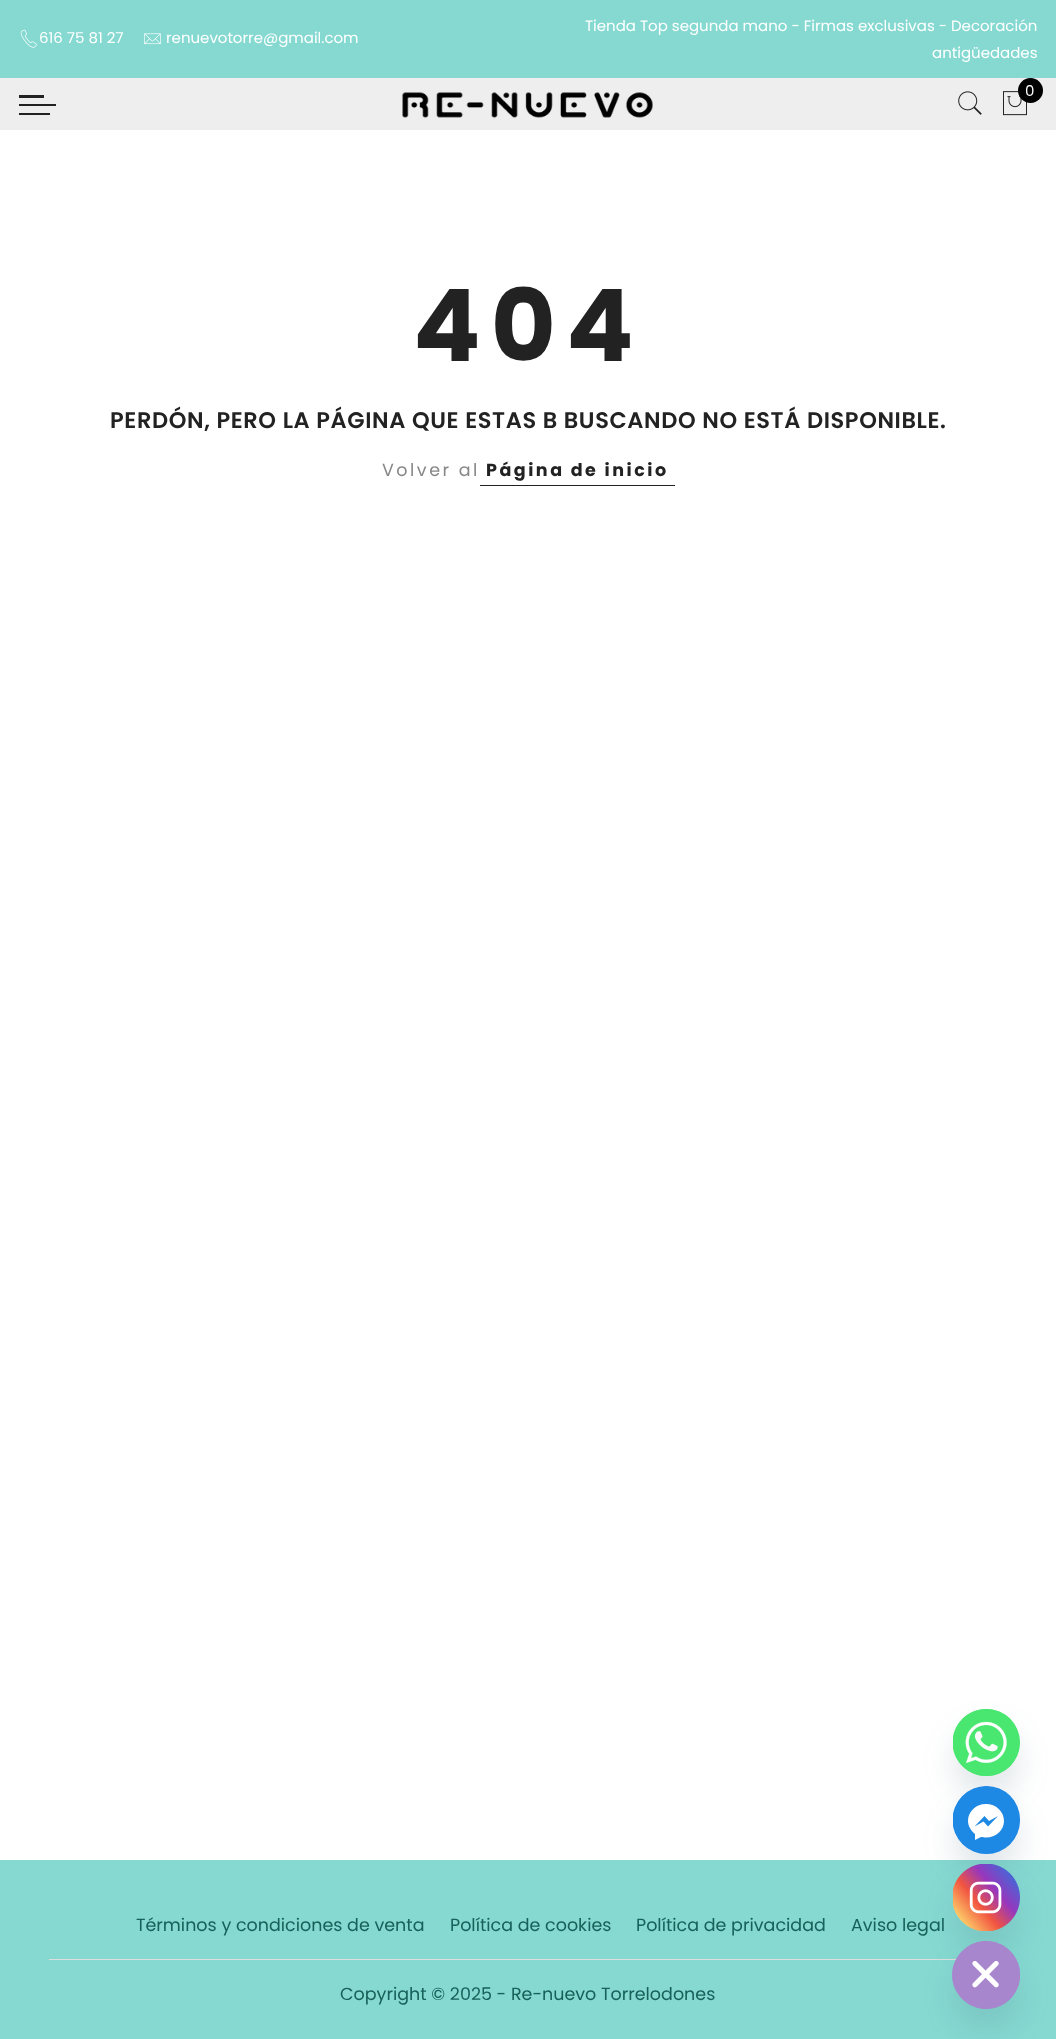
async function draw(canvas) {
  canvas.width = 1056
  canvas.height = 2039
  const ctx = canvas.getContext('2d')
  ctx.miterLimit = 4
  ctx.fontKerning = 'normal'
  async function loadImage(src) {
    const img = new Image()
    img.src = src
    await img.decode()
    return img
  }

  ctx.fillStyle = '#fff'
  ctx.fillRect(0, 0, 1056, 2039)
  ctx.fillStyle = '#eee'
  ctx.fillRect(0, 78, 1056, 52)
  ctx.fillStyle = '#85d9d1'
  ctx.fillRect(0, 0, 1056, 78)
  ctx.drawImage(await loadImage('image0.png'), 20, 29, 17, 19)
  ctx.font = '15px Poppins'
  ctx.fillStyle = '#fff'
  ctx.fillText('616 75 81 27', 39, 43)
  ctx.drawImage(await loadImage('image1.png'), 144, 33, 17, 12)
  ctx.fillText('renuevotorre@gmail.com', 166, 43)
  ctx.fillText('Tienda Top segunda mano - Firmas exclusivas - Decoración', 585, 31)
  ctx.fillText('antigüedades', 932, 58)
  ctx.drawImage(await loadImage('image2.png'), 958, 91, 24, 24)
  ctx.drawImage(await loadImage('image3.png'), 1003, 91, 24, 25)
  ctx.fillStyle = '#000'
  ctx.beginPath()
  ctx.arc(1030.5, 90.5, 12.5, 0, 2 * Math.PI)
  ctx.fill()
  ctx.fillStyle = '#fff'
  ctx.fillText('0', 1025, 96)
  ctx.fillStyle = '#222'
  ctx.fillRect(19, 95, 25, 3)
  ctx.fillRect(19, 104, 37, 2)
  ctx.fillRect(19, 113, 31, 2)
  ctx.drawImage(await loadImage('image4.png'), 402, 92, 251, 26)
  ctx.letterSpacing = '10px'
  ctx.font = 'bold 100px Poppins'
  ctx.fillText('404', 413, 361)
  ctx.letterSpacing = '0.62px'
  ctx.font = '600 22.5px Poppins'
  ctx.fillText('PERDÓN, PERO LA PÁGINA QUE ESTAS B BUSCANDO NO ESTÁ DISPONIBLE.', 110, 428)
  ctx.letterSpacing = '2.5px'
  ctx.font = '17.5px Poppins'
  ctx.fillStyle = '#878787'
  ctx.fillText('Volver al', 382, 476)
  ctx.font = 'bold 17.5px Poppins'
  ctx.fillStyle = '#222'
  ctx.fillText('Página de inicio', 486, 476)
  ctx.fillRect(480, 485, 195, 1)
  ctx.fillStyle = '#85d9d1'
  ctx.fillRect(0, 1860, 1056, 179)
  ctx.letterSpacing = '0px'
  ctx.font = '17.5px Poppins'
  ctx.fillStyle = '#17615a'
  ctx.fillText('Términos y condiciones de venta', 136, 1931)
  ctx.fillText('Política de cookies', 450, 1931)
  ctx.fillText('Política de privacidad', 636, 1931)
  ctx.fillText('Aviso legal', 851, 1931)
  ctx.fillStyle = '#dedede'
  ctx.fillRect(49, 1959, 908, 1)
  ctx.fillStyle = '#17615a'
  ctx.fillText('Copyright © 2025 - Re-nuevo Torrelodones', 340, 2000)
  ctx.fillStyle = '#49687e29'
  ctx.filter = 'blur(15px)'
  ctx.beginPath()
  ctx.roundRect(953, 1729, 67, 67, 33.5)
  ctx.fill()
  ctx.filter = 'none'
  ctx.fillStyle = '#49e670'
  ctx.beginPath()
  ctx.arc(986.5, 1742.5, 33.5, 0, 2 * Math.PI)
  ctx.fill()
  ctx.drawImage(await loadImage('image5.png'), 953, 1709, 67, 67)
  ctx.fillStyle = '#49687e29'
  ctx.filter = 'blur(15px)'
  ctx.beginPath()
  ctx.roundRect(953, 1806, 67, 68, 33.5)
  ctx.fill()
  ctx.filter = 'none'
  ctx.fillStyle = '#1e88e5'
  ctx.beginPath()
  ctx.roundRect(953, 1786, 67, 68, 33.5)
  ctx.fill()
  ctx.save()
  ctx.beginPath()
  ctx.rect(953, 1786, 67, 68)
  ctx.clip()
  ctx.beginPath()
  ctx.arc(986, 1820, 33.5, 0, 2 * Math.PI)
  ctx.fill()
  ctx.restore()
  ctx.fillStyle = '#fff'
  ctx.beginPath()
  ctx.moveTo(968, 1821)
  ctx.bezierCurveTo(968, 1811.5, 976, 1804, 986, 1804)
  ctx.bezierCurveTo(996, 1804, 1004, 1811.5, 1004, 1821)
  ctx.bezierCurveTo(1004, 1830, 996, 1837.5, 986, 1837.5)
  ctx.bezierCurveTo(984.5, 1837.5, 982.5, 1837, 981, 1837)
  ctx.lineTo(975, 1840)
  ctx.lineTo(975, 1834)
  ctx.bezierCurveTo(971, 1830.5, 968, 1826, 968, 1821)
  ctx.closePath()
  ctx.moveTo(983.5, 1821.5)
  ctx.lineTo(988, 1826.5)
  ctx.lineTo(998, 1816)
  ctx.lineTo(989, 1821)
  ctx.lineTo(984.5, 1816)
  ctx.lineTo(974.5, 1826.5)
  ctx.closePath()
  ctx.fill('evenodd')
  ctx.fillStyle = '#49687e29'
  ctx.filter = 'blur(15px)'
  ctx.beginPath()
  ctx.roundRect(953, 1884, 67, 67, 33.5)
  ctx.fill()
  ctx.filter = 'none'
  ctx.drawImage(await loadImage('image6.png'), 953, 1864, 67, 67)
  ctx.filter = 'blur(15px)'
  ctx.beginPath()
  ctx.roundRect(953, 1961, 67, 68, 33.5)
  ctx.fill()
  ctx.filter = 'none'
  ctx.fillStyle = '#a886cd'
  ctx.beginPath()
  ctx.moveTo(986, 2009)
  ctx.bezierCurveTo(968, 2009, 952, 1994, 952, 1975)
  ctx.bezierCurveTo(952, 1956, 968, 1941, 986, 1941)
  ctx.bezierCurveTo(1005, 1941, 1020, 1956, 1020, 1975)
  ctx.bezierCurveTo(1020, 1994, 1005, 2009, 986, 2009)
  ctx.closePath()
  ctx.fill()
  ctx.drawImage(await loadImage('image7.png'), 969, 1941, 51, 68)
}

draw(document.querySelector('canvas'))
